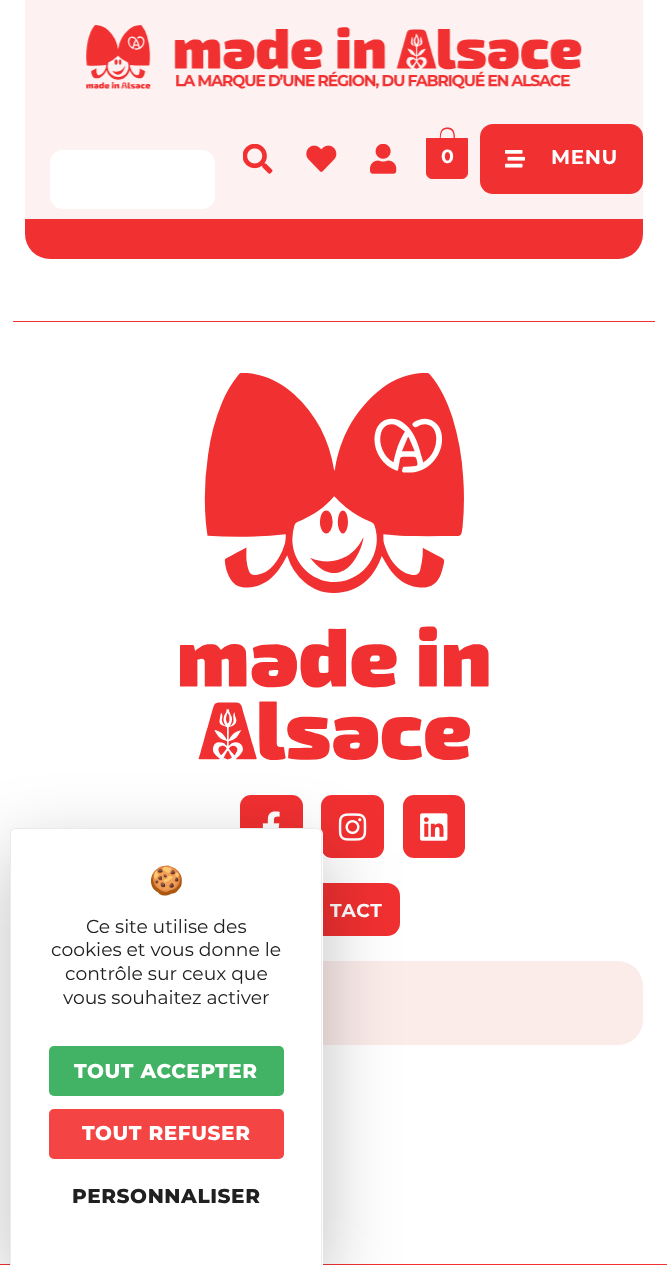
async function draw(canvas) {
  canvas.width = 667
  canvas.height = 1265
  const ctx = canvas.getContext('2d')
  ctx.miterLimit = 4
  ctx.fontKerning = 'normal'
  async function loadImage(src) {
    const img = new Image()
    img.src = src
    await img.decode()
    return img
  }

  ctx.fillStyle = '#fff'
  ctx.fillRect(0, 0, 667, 1265)
  ctx.fillStyle = '#f13031'
  ctx.beginPath()
  ctx.roundRect(25, -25, 618, 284, 25)
  ctx.fill()
  ctx.fillStyle = '#fef1f1'
  ctx.fillRect(25, 0, 618, 219)
  ctx.fillStyle = '#fff'
  ctx.beginPath()
  ctx.roundRect(51.5, 151.5, 162, 56, 11.5)
  ctx.fill()
  ctx.strokeStyle = '#fff'
  ctx.lineWidth = 3
  ctx.stroke()
  ctx.drawImage(await loadImage('image0.png'), 86, 25, 496, 64)
  ctx.drawImage(await loadImage('image1.png'), 243, 144, 30, 30)
  ctx.drawImage(await loadImage('image2.png'), 306, 145, 31, 27)
  ctx.drawImage(await loadImage('image3.png'), 370, 144, 27, 30)
  ctx.fillStyle = '#f13031'
  ctx.beginPath()
  ctx.roundRect(426.5, 138.5, 41, 40, [0, 0, 5.5, 5.5])
  ctx.fill()
  ctx.strokeStyle = '#f13031'
  ctx.lineWidth = 1
  ctx.stroke()
  ctx.beginPath()
  ctx.moveTo(447.5, 127.5)
  ctx.bezierCurveTo(456, 127.5, 455, 136.5, 455, 142.5)
  ctx.lineTo(440, 142.5)
  ctx.bezierCurveTo(440, 136.5, 438.5, 127.5, 447.5, 127.5)
  ctx.closePath()
  ctx.moveTo(447.5, 129)
  ctx.bezierCurveTo(455, 129, 453.5, 137.5, 453.5, 142.5)
  ctx.lineTo(441, 142.5)
  ctx.bezierCurveTo(441, 137.5, 439.5, 129, 447.5, 129)
  ctx.closePath()
  ctx.fill('evenodd')
  ctx.font = 'bold 19px Montserrat'
  ctx.fillStyle = '#fff'
  ctx.fillText('0', 441, 163)
  ctx.fillStyle = '#f13031'
  ctx.beginPath()
  ctx.roundRect(480, 124, 163, 70, 13)
  ctx.fill()
  ctx.drawImage(await loadImage('image4.png'), 505, 150, 20, 18)
  ctx.letterSpacing = '0.6px'
  ctx.font = 'bold 20px Montserrat'
  ctx.fillStyle = '#fff'
  ctx.fillText('MENU', 551, 164)
  ctx.fillStyle = '#f13031'
  ctx.fillRect(13, 321, 642, 1)
  ctx.drawImage(await loadImage('image5.png'), 180, 373, 309, 387)
  ctx.beginPath()
  ctx.roundRect(240, 795, 63, 63, 11)
  ctx.fill()
  ctx.drawImage(await loadImage('image6.png'), 262, 811, 18, 17)
  ctx.beginPath()
  ctx.roundRect(321, 795, 63, 63, 11)
  ctx.fill()
  ctx.drawImage(await loadImage('image7.png'), 338, 813, 29, 28)
  ctx.beginPath()
  ctx.roundRect(403, 795, 62, 63, 11)
  ctx.fill()
  ctx.drawImage(await loadImage('image8.png'), 420, 813, 28, 28)
  ctx.beginPath()
  ctx.roundRect(268, 883, 132, 53, 13)
  ctx.fill()
  ctx.font = 'bold 18.75px Montserrat'
  ctx.fillStyle = '#fff'
  ctx.fillText('TACT', 330, 917)
  ctx.fillStyle = '#fbecea'
  ctx.beginPath()
  ctx.roundRect(25, 961, 618, 84, 25)
  ctx.fill()
  ctx.fillStyle = '#f13031'
  ctx.fillRect(0, 1264, 667, 1)
  ctx.fillStyle = '#00000040'
  ctx.filter = 'blur(37.5px)'
  ctx.beginPath()
  ctx.roundRect(10, 853, 313, 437, 6)
  ctx.fill()
  ctx.filter = 'none'
  ctx.fillStyle = '#fff'
  ctx.beginPath()
  ctx.roundRect(10, 828, 313, 437, [6, 6, 0, 0])
  ctx.fill()
  ctx.fillStyle = '#ebebeb'
  ctx.beginPath()
  ctx.moveTo(16, 828)
  ctx.lineTo(316, 828)
  ctx.bezierCurveTo(320, 828, 322, 830, 322, 834)
  ctx.lineTo(322, 1265)
  ctx.lineTo(10, 1265)
  ctx.lineTo(10, 834)
  ctx.bezierCurveTo(10, 830, 13, 828, 16, 828)
  ctx.closePath()
  ctx.moveTo(16, 829)
  ctx.lineTo(316, 829)
  ctx.bezierCurveTo(319, 829, 321, 831, 321, 834)
  ctx.lineTo(321, 1265)
  ctx.lineTo(11, 1265)
  ctx.lineTo(11, 834)
  ctx.bezierCurveTo(11, 831, 13, 829, 16, 829)
  ctx.closePath()
  ctx.fill('evenodd')
  ctx.letterSpacing = '0px'
  ctx.font = '28px Noto Color Emoji'
  ctx.fillStyle = '#202020'
  ctx.fillText('🍪', 149, 890)
  ctx.font = '18.75px Montserrat'
  ctx.fillText('Ce site utilise des', 86, 933)
  ctx.fillText('cookies et vous donne le', 51, 956)
  ctx.fillText('contrôle sur ceux que', 65, 980)
  ctx.fillText('vous souhaitez activer', 63, 1004)
  ctx.fillStyle = '#42b364'
  ctx.beginPath()
  ctx.roundRect(49, 1046, 235, 50, 5)
  ctx.fill()
  ctx.letterSpacing = '0.6px'
  ctx.font = '800 20px Montserrat'
  ctx.fillStyle = '#fff'
  ctx.fillText('TOUT ACCEPTER', 74, 1078)
  ctx.fillStyle = '#f54444'
  ctx.beginPath()
  ctx.roundRect(49, 1109, 235, 50, 5)
  ctx.fill()
  ctx.fillStyle = '#fff'
  ctx.fillText('TOUT REFUSER', 82, 1140)
  ctx.fillStyle = '#202020'
  ctx.fillText('PERSONNALISER', 72, 1203)
}

draw(document.querySelector('canvas'))
